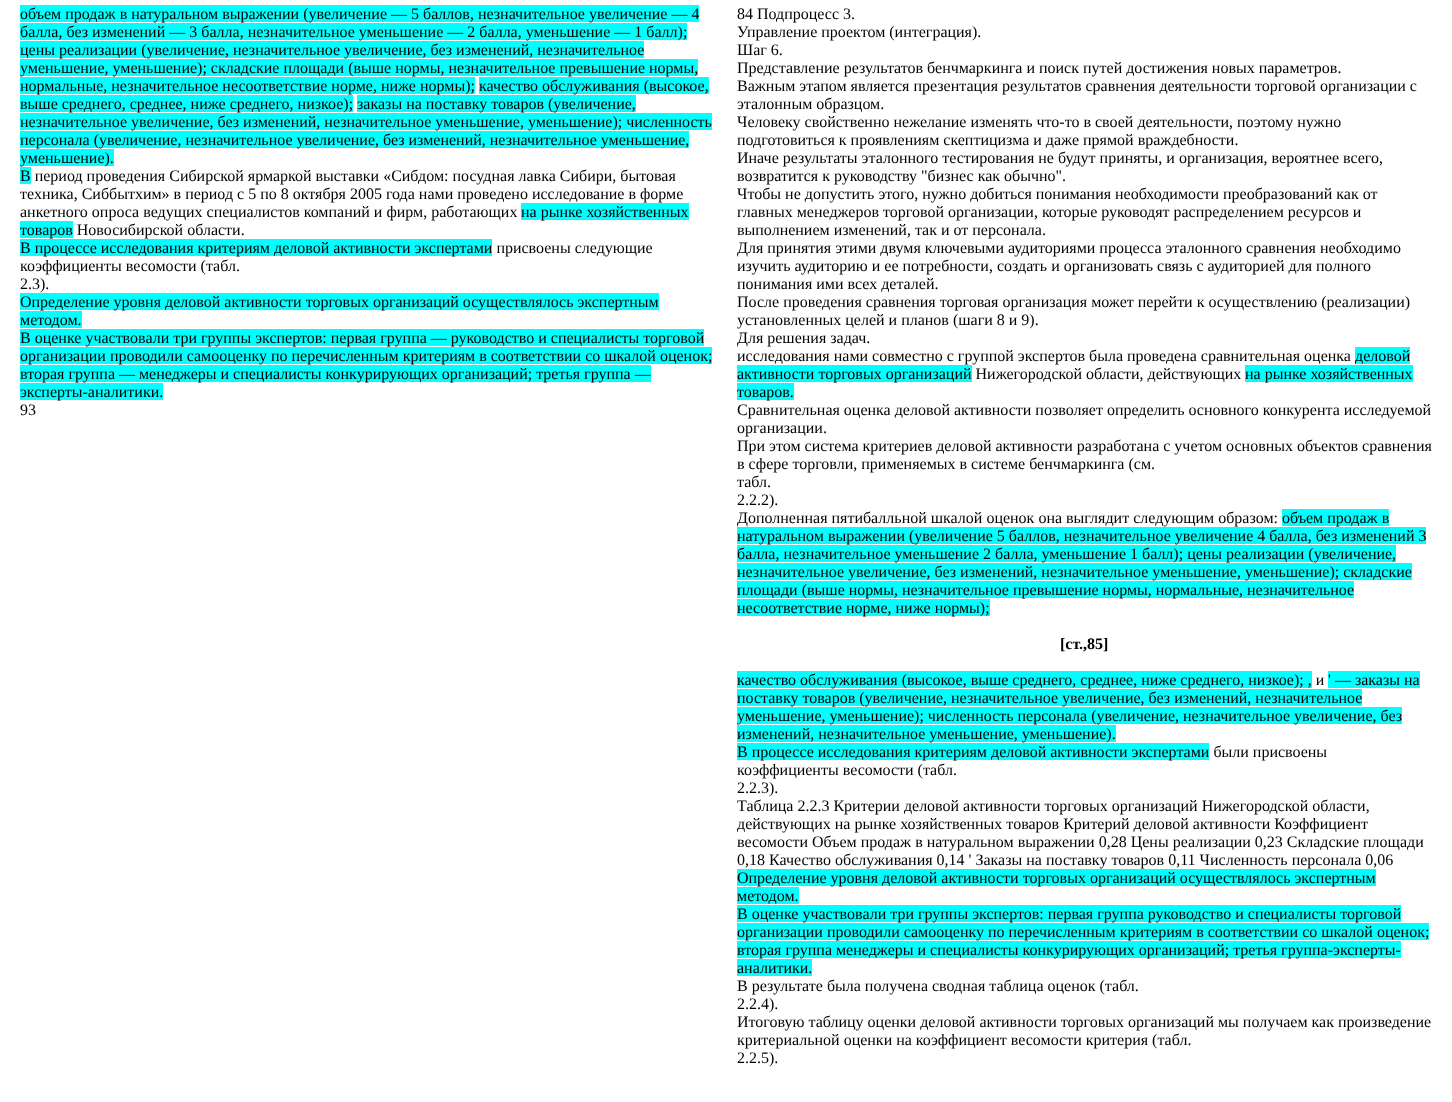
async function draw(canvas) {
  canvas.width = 1452
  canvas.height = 1102
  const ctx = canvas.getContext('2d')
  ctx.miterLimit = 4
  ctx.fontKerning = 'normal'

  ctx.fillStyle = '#fff'
  ctx.fillRect(0, 0, 1452, 1102)
  ctx.fillStyle = '#0ff'
  ctx.fillRect(20, 5, 679, 17)
  ctx.font = '16px Liberation Serif'
  ctx.fillStyle = '#000'
  ctx.fillText('объем продаж в натуральном выражении (увеличение — 5 баллов, незначительное увеличение — 4', 20, 19)
  ctx.fillStyle = '#0ff'
  ctx.fillRect(20, 23, 667, 17)
  ctx.fillStyle = '#000'
  ctx.fillText('балла, без изменений — 3 балла, незначительное уменьшение — 2 балла, уменьшение — 1 балл);', 20, 37)
  ctx.fillStyle = '#0ff'
  ctx.fillRect(20, 41, 624, 17)
  ctx.fillStyle = '#000'
  ctx.fillText('цены реализации (увеличение, незначительное увеличение, без изменений, незначительное', 20, 55)
  ctx.fillStyle = '#0ff'
  ctx.fillRect(20, 59, 678, 17)
  ctx.fillStyle = '#000'
  ctx.fillText('уменьшение, уменьшение); складские площади (выше нормы, незначительное превышение нормы,', 20, 73)
  ctx.fillStyle = '#0ff'
  ctx.fillRect(20, 77, 455, 17)
  ctx.fillStyle = '#000'
  ctx.fillText('нормальные, незначительное несоответствие норме, ниже нормы);', 20, 91)
  ctx.fillStyle = '#0ff'
  ctx.fillRect(479, 77, 230, 17)
  ctx.fillStyle = '#000'
  ctx.fillText('качество обслуживания (высокое,', 479, 91)
  ctx.fillStyle = '#0ff'
  ctx.fillRect(20, 95, 333, 17)
  ctx.fillStyle = '#000'
  ctx.fillText('выше среднего, среднее, ниже среднего, низкое);', 20, 109)
  ctx.fillStyle = '#0ff'
  ctx.fillRect(357, 95, 279, 17)
  ctx.fillStyle = '#000'
  ctx.fillText('заказы на поставку товаров (увеличение,', 357, 109)
  ctx.fillStyle = '#0ff'
  ctx.fillRect(20, 113, 692, 17)
  ctx.fillStyle = '#000'
  ctx.fillText('незначительное увеличение, без изменений, незначительное уменьшение, уменьшение); численность', 20, 127)
  ctx.fillStyle = '#0ff'
  ctx.fillRect(20, 131, 669, 17)
  ctx.fillStyle = '#000'
  ctx.fillText('персонала (увеличение, незначительное увеличение, без изменений, незначительное уменьшение,', 20, 145)
  ctx.fillStyle = '#0ff'
  ctx.fillRect(20, 149, 94, 17)
  ctx.fillStyle = '#000'
  ctx.fillText('уменьшение).', 20, 163)
  ctx.fillStyle = '#0ff'
  ctx.fillRect(20, 167, 11, 17)
  ctx.fillStyle = '#000'
  ctx.fillText('В период проведения Сибирской ярмаркой выставки «Сибдом: посудная лавка Сибири, бытовая', 20, 181)
  ctx.fillText('техника, Сиббытхим» в период с 5 по 8 октября 2005 года нами проведено исследование в форме', 20, 199)
  ctx.fillText('анкетного опроса ведущих специалистов компаний и фирм, работающих', 20, 217)
  ctx.fillStyle = '#0ff'
  ctx.fillRect(521, 203, 168, 17)
  ctx.fillStyle = '#000'
  ctx.fillText('на рынке хозяйственных', 521, 217)
  ctx.fillStyle = '#0ff'
  ctx.fillRect(20, 221, 53, 17)
  ctx.fillStyle = '#000'
  ctx.fillText('товаров Новосибирской области.', 20, 235)
  ctx.fillStyle = '#0ff'
  ctx.fillRect(20, 239, 472, 17)
  ctx.fillStyle = '#000'
  ctx.fillText('В процессе исследования критериям деловой активности экспертами присвоены следующие', 20, 253)
  ctx.fillText('коэффициенты весомости (табл.', 20, 271)
  ctx.fillText('2.3).', 20, 289)
  ctx.fillStyle = '#0ff'
  ctx.fillRect(20, 293, 639, 17)
  ctx.fillStyle = '#000'
  ctx.fillText('Определение уровня деловой активности торговых организаций осуществлялось экспертным', 20, 307)
  ctx.fillStyle = '#0ff'
  ctx.fillRect(20, 311, 62, 17)
  ctx.fillStyle = '#000'
  ctx.fillText('методом.', 20, 325)
  ctx.fillStyle = '#0ff'
  ctx.fillRect(20, 329, 684, 17)
  ctx.fillStyle = '#000'
  ctx.fillText('В оценке участвовали три группы экспертов: первая группа — руководство и специалисты торговой', 20, 343)
  ctx.fillStyle = '#0ff'
  ctx.fillRect(20, 347, 692, 17)
  ctx.fillStyle = '#000'
  ctx.fillText('организации проводили самооценку по перечисленным критериям в соответствии со шкалой оценок;', 20, 361)
  ctx.fillStyle = '#0ff'
  ctx.fillRect(20, 365, 631, 17)
  ctx.fillStyle = '#000'
  ctx.fillText('вторая группа — менеджеры и специалисты конкурирующих организаций; третья группа —', 20, 379)
  ctx.fillStyle = '#0ff'
  ctx.fillRect(20, 383, 143, 17)
  ctx.fillStyle = '#000'
  ctx.fillText('эксперты-аналитики.', 20, 397)
  ctx.fillText('93', 20, 415)
  ctx.fillText('84 Подпроцесс 3.', 737, 19)
  ctx.fillText('Управление проектом (интеграция).', 737, 37)
  ctx.fillText('Шаг 6.', 737, 55)
  ctx.fillText('Представление результатов бенчмаркинга и поиск путей достижения новых параметров.', 737, 73)
  ctx.fillText('Важным этапом является презентация результатов сравнения деятельности торговой организации с', 737, 91)
  ctx.fillText('эталонным образцом.', 737, 109)
  ctx.fillText('Человеку свойственно нежелание изменять что-то в своей деятельности, поэтому нужно', 737, 127)
  ctx.fillText('подготовиться к проявлениям скептицизма и даже прямой враждебности.', 737, 145)
  ctx.fillText('Иначе результаты эталонного тестирования не будут приняты, и организация, вероятнее всего,', 737, 163)
  ctx.fillText('возвратится к руководству "бизнес как обычно".', 737, 181)
  ctx.fillText('Чтобы не допустить этого, нужно добиться понимания необходимости преобразований как от', 737, 199)
  ctx.fillText('главных менеджеров торговой организации, которые руководят распределением ресурсов и', 737, 217)
  ctx.fillText('выполнением изменений, так и от персонала.', 737, 235)
  ctx.fillText('Для принятия этими двумя ключевыми аудиториями процесса эталонного сравнения необходимо', 737, 253)
  ctx.fillText('изучить аудиторию и ее потребности, создать и организовать связь с аудиторией для полного', 737, 271)
  ctx.fillText('понимания ими всех деталей.', 737, 289)
  ctx.fillText('После проведения сравнения торговая организация может перейти к осуществлению (реализации)', 737, 307)
  ctx.fillText('установленных целей и планов (шаги 8 и 9).', 737, 325)
  ctx.fillText('Для решения задач.', 737, 343)
  ctx.fillText('исследования нами совместно с группой экспертов была проведена сравнительная оценка', 737, 361)
  ctx.fillStyle = '#0ff'
  ctx.fillRect(1355, 347, 55, 17)
  ctx.fillStyle = '#000'
  ctx.fillText('деловой', 1355, 361)
  ctx.fillStyle = '#0ff'
  ctx.fillRect(737, 365, 235, 17)
  ctx.fillStyle = '#000'
  ctx.fillText('активности торговых организаций Нижегородской области, действующих', 737, 379)
  ctx.fillStyle = '#0ff'
  ctx.fillRect(1245, 365, 168, 17)
  ctx.fillStyle = '#000'
  ctx.fillText('на рынке хозяйственных', 1245, 379)
  ctx.fillStyle = '#0ff'
  ctx.fillRect(737, 383, 57, 17)
  ctx.fillStyle = '#000'
  ctx.fillText('товаров.', 737, 397)
  ctx.fillText('Сравнительная оценка деловой активности позволяет определить основного конкурента исследуемой', 737, 415)
  ctx.fillText('организации.', 737, 433)
  ctx.fillText('При этом система критериев деловой активности разработана с учетом основных объектов сравнения', 737, 451)
  ctx.fillText('в сфере торговли, применяемых в системе бенчмаркинга (см.', 737, 469)
  ctx.fillText('табл.', 737, 487)
  ctx.fillText('2.2.2).', 737, 505)
  ctx.fillText('Дополненная пятибалльной шкалой оценок она выглядит следующим образом:', 737, 523)
  ctx.fillStyle = '#0ff'
  ctx.fillRect(1282, 509, 107, 17)
  ctx.fillStyle = '#000'
  ctx.fillText('объем продаж в', 1282, 523)
  ctx.fillStyle = '#0ff'
  ctx.fillRect(737, 527, 689, 17)
  ctx.fillStyle = '#000'
  ctx.fillText('натуральном выражении (увеличение 5 баллов, незначительное увеличение 4 балла, без изменений 3', 737, 541)
  ctx.fillStyle = '#0ff'
  ctx.fillRect(737, 545, 659, 17)
  ctx.fillStyle = '#000'
  ctx.fillText('балла, незначительное уменьшение 2 балла, уменьшение 1 балл); цены реализации (увеличение,', 737, 559)
  ctx.fillStyle = '#0ff'
  ctx.fillRect(737, 563, 675, 17)
  ctx.fillStyle = '#000'
  ctx.fillText('незначительное увеличение, без изменений, незначительное уменьшение, уменьшение); складские', 737, 577)
  ctx.fillStyle = '#0ff'
  ctx.fillRect(737, 581, 617, 17)
  ctx.fillStyle = '#000'
  ctx.fillText('площади (выше нормы, незначительное превышение нормы, нормальные, незначительное', 737, 595)
  ctx.fillStyle = '#0ff'
  ctx.fillRect(737, 599, 253, 17)
  ctx.fillStyle = '#000'
  ctx.fillText('несоответствие норме, ниже нормы);', 737, 613)
  ctx.font = 'bold 16px Liberation Serif'
  ctx.fillText('[ст.,85]', 1060, 649)
  ctx.fillStyle = '#0ff'
  ctx.fillRect(737, 671, 575, 17)
  ctx.font = '16px Liberation Serif'
  ctx.fillStyle = '#000'
  ctx.fillText('качество обслуживания (высокое, выше среднего, среднее, ниже среднего, низкое); , и', 737, 685)
  ctx.fillStyle = '#0ff'
  ctx.fillRect(1328, 671, 92, 17)
  ctx.fillStyle = '#000'
  ctx.fillText('\' — заказы на', 1328, 685)
  ctx.fillStyle = '#0ff'
  ctx.fillRect(737, 689, 625, 17)
  ctx.fillStyle = '#000'
  ctx.fillText('поставку товаров (увеличение, незначительное увеличение, без изменений, незначительное', 737, 703)
  ctx.fillStyle = '#0ff'
  ctx.fillRect(737, 707, 665, 17)
  ctx.fillStyle = '#000'
  ctx.fillText('уменьшение, уменьшение); численность персонала (увеличение, незначительное увеличение, без', 737, 721)
  ctx.fillStyle = '#0ff'
  ctx.fillRect(737, 725, 379, 17)
  ctx.fillStyle = '#000'
  ctx.fillText('изменений, незначительное уменьшение, уменьшение).', 737, 739)
  ctx.fillStyle = '#0ff'
  ctx.fillRect(737, 743, 472, 17)
  ctx.fillStyle = '#000'
  ctx.fillText('В процессе исследования критериям деловой активности экспертами были присвоены', 737, 757)
  ctx.fillText('коэффициенты весомости (табл.', 737, 775)
  ctx.fillText('2.2.3).', 737, 793)
  ctx.fillText('Таблица 2.2.3 Критерии деловой активности торговых организаций Нижегородской области,', 737, 811)
  ctx.fillText('действующих на рынке хозяйственных товаров Критерий деловой активности Коэффициент', 737, 829)
  ctx.fillText('весомости Объем продаж в натуральном выражении 0,28 Цены реализации 0,23 Складские площади', 737, 847)
  ctx.fillText('0,18 Качество обслуживания 0,14 \' Заказы на поставку товаров 0,11 Численность персонала 0,06', 737, 865)
  ctx.fillStyle = '#0ff'
  ctx.fillRect(737, 869, 639, 17)
  ctx.fillStyle = '#000'
  ctx.fillText('Определение уровня деловой активности торговых организаций осуществлялось экспертным', 737, 883)
  ctx.fillStyle = '#0ff'
  ctx.fillRect(737, 887, 62, 17)
  ctx.fillStyle = '#000'
  ctx.fillText('методом.', 737, 901)
  ctx.fillStyle = '#0ff'
  ctx.fillRect(737, 905, 664, 17)
  ctx.fillStyle = '#000'
  ctx.fillText('В оценке участвовали три группы экспертов: первая группа руководство и специалисты торговой', 737, 919)
  ctx.fillStyle = '#0ff'
  ctx.fillRect(737, 923, 692, 17)
  ctx.fillStyle = '#000'
  ctx.fillText('организации проводили самооценку по перечисленным критериям в соответствии со шкалой оценок;', 737, 937)
  ctx.fillStyle = '#0ff'
  ctx.fillRect(737, 941, 664, 17)
  ctx.fillStyle = '#000'
  ctx.fillText('вторая группа менеджеры и специалисты конкурирующих организаций; третья группа-эксперты-', 737, 955)
  ctx.fillStyle = '#0ff'
  ctx.fillRect(737, 959, 75, 17)
  ctx.fillStyle = '#000'
  ctx.fillText('аналитики.', 737, 973)
  ctx.fillText('В результате была получена сводная таблица оценок (табл.', 737, 991)
  ctx.fillText('2.2.4).', 737, 1009)
  ctx.fillText('Итоговую таблицу оценки деловой активности торговых организаций мы получаем как произведение', 737, 1027)
  ctx.fillText('критериальной оценки на коэффициент весомости критерия (табл.', 737, 1045)
  ctx.fillText('2.2.5).', 737, 1063)
}

draw(document.querySelector('canvas'))
